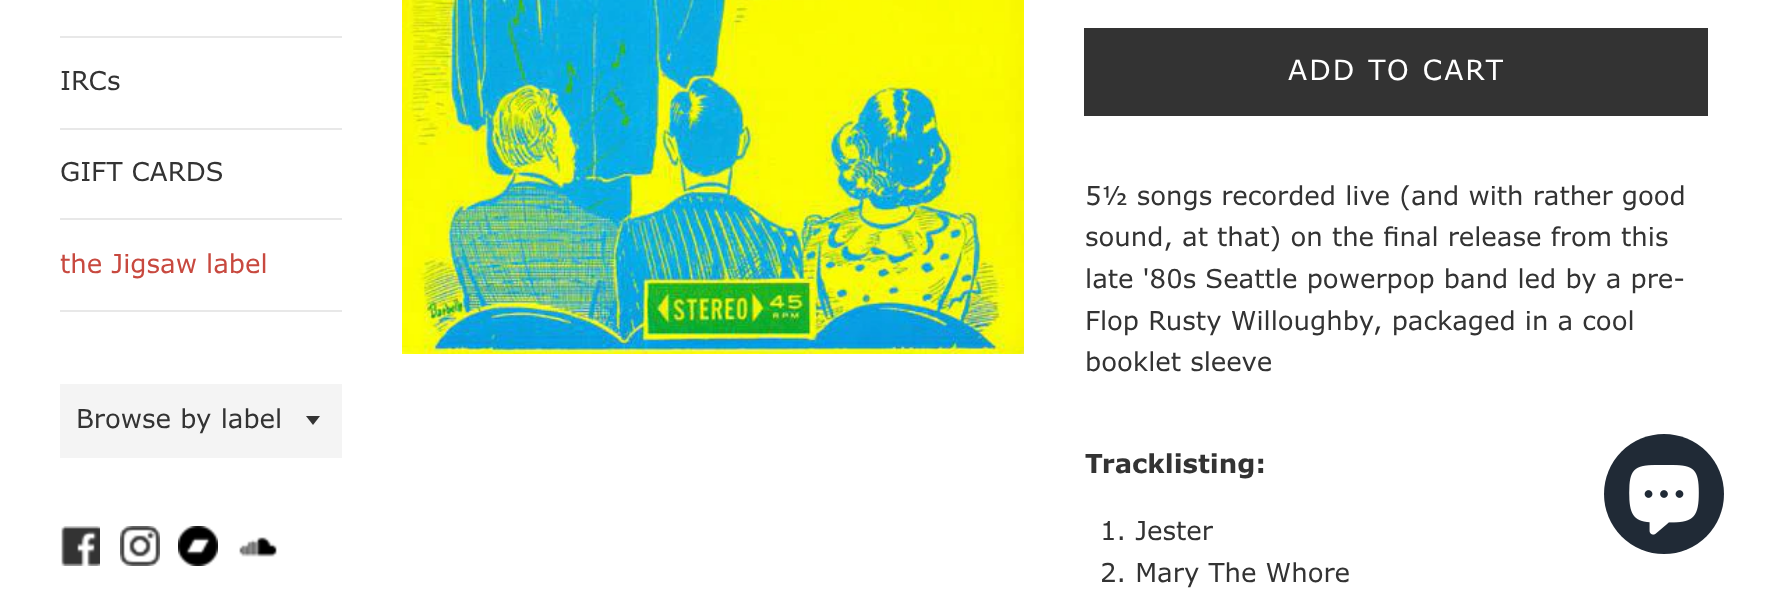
async function draw(canvas) {
  canvas.width = 1767
  canvas.height = 595
  const ctx = canvas.getContext('2d')
  ctx.miterLimit = 4
  ctx.fontKerning = 'normal'
  async function loadImage(src) {
    const img = new Image()
    img.src = src
    await img.decode()
    return img
  }

  ctx.fillStyle = '#fff'
  ctx.fillRect(0, 0, 1767, 595)
  ctx.fillStyle = '#e8e8e8'
  ctx.fillRect(60, 36, 282, 2)
  ctx.fillRect(60, 128, 282, 2)
  ctx.font = '26px Verdana'
  ctx.fillStyle = '#333'
  ctx.fillText('IRCs', 60, 90)
  ctx.fillStyle = '#e8e8e8'
  ctx.fillRect(60, 218, 282, 2)
  ctx.fillStyle = '#333'
  ctx.fillText('GIFT CARDS', 60, 181)
  ctx.fillStyle = '#e8e8e8'
  ctx.fillRect(60, 310, 282, 2)
  ctx.fillStyle = '#c8493f'
  ctx.fillText('the Jigsaw label', 60, 273)
  ctx.fillStyle = '#f4f4f4'
  ctx.fillRect(60, 384, 282, 74)
  ctx.fillStyle = '#333'
  ctx.beginPath()
  ctx.moveTo(306, 416)
  ctx.lineTo(313, 425)
  ctx.lineTo(320, 416)
  ctx.closePath()
  ctx.fill()
  ctx.fillText('Browse by label', 76, 428)
  ctx.drawImage(await loadImage('image0.png'), 61, 526, 39, 40)
  ctx.drawImage(await loadImage('image1.png'), 120, 526, 40, 40)
  ctx.drawImage(await loadImage('image2.png'), 178, 526, 40, 40)
  ctx.drawImage(await loadImage('image3.png'), 239, 537, 38, 20)
  ctx.drawImage(await loadImage('image4.png'), 402, 0, 622, 354)
  ctx.fillRect(1084, 28, 624, 88)
  ctx.letterSpacing = '2px'
  ctx.font = '28px Verdana'
  ctx.fillStyle = '#fff'
  ctx.fillText('ADD TO CART', 1288, 80)
  ctx.letterSpacing = '0px'
  ctx.font = '26px Verdana'
  ctx.fillStyle = '#333'
  ctx.fillText('5½ songs recorded live (and with rather good', 1085, 205)
  ctx.fillText('sound, at that) on the final release from this', 1085, 246)
  ctx.fillText('late \'80s Seattle powerpop band led by a pre-', 1085, 288)
  ctx.fillText('Flop Rusty Willoughby, packaged in a cool', 1085, 330)
  ctx.fillText('booklet sleeve', 1085, 371)
  ctx.font = 'bold 26px Verdana'
  ctx.fillText('Tracklisting:', 1085, 473)
  ctx.font = '26px Verdana'
  ctx.fillText('1. Jester', 1100, 540)
  ctx.fillText('2. Mary The Whore', 1100, 582)
  ctx.fillStyle = '#202a36'
  ctx.beginPath()
  ctx.arc(1664, 494, 60, 0, 2 * Math.PI)
  ctx.fill()
  ctx.drawImage(await loadImage('image5.png'), 1629, 465, 70, 70)
}

draw(document.querySelector('canvas'))
